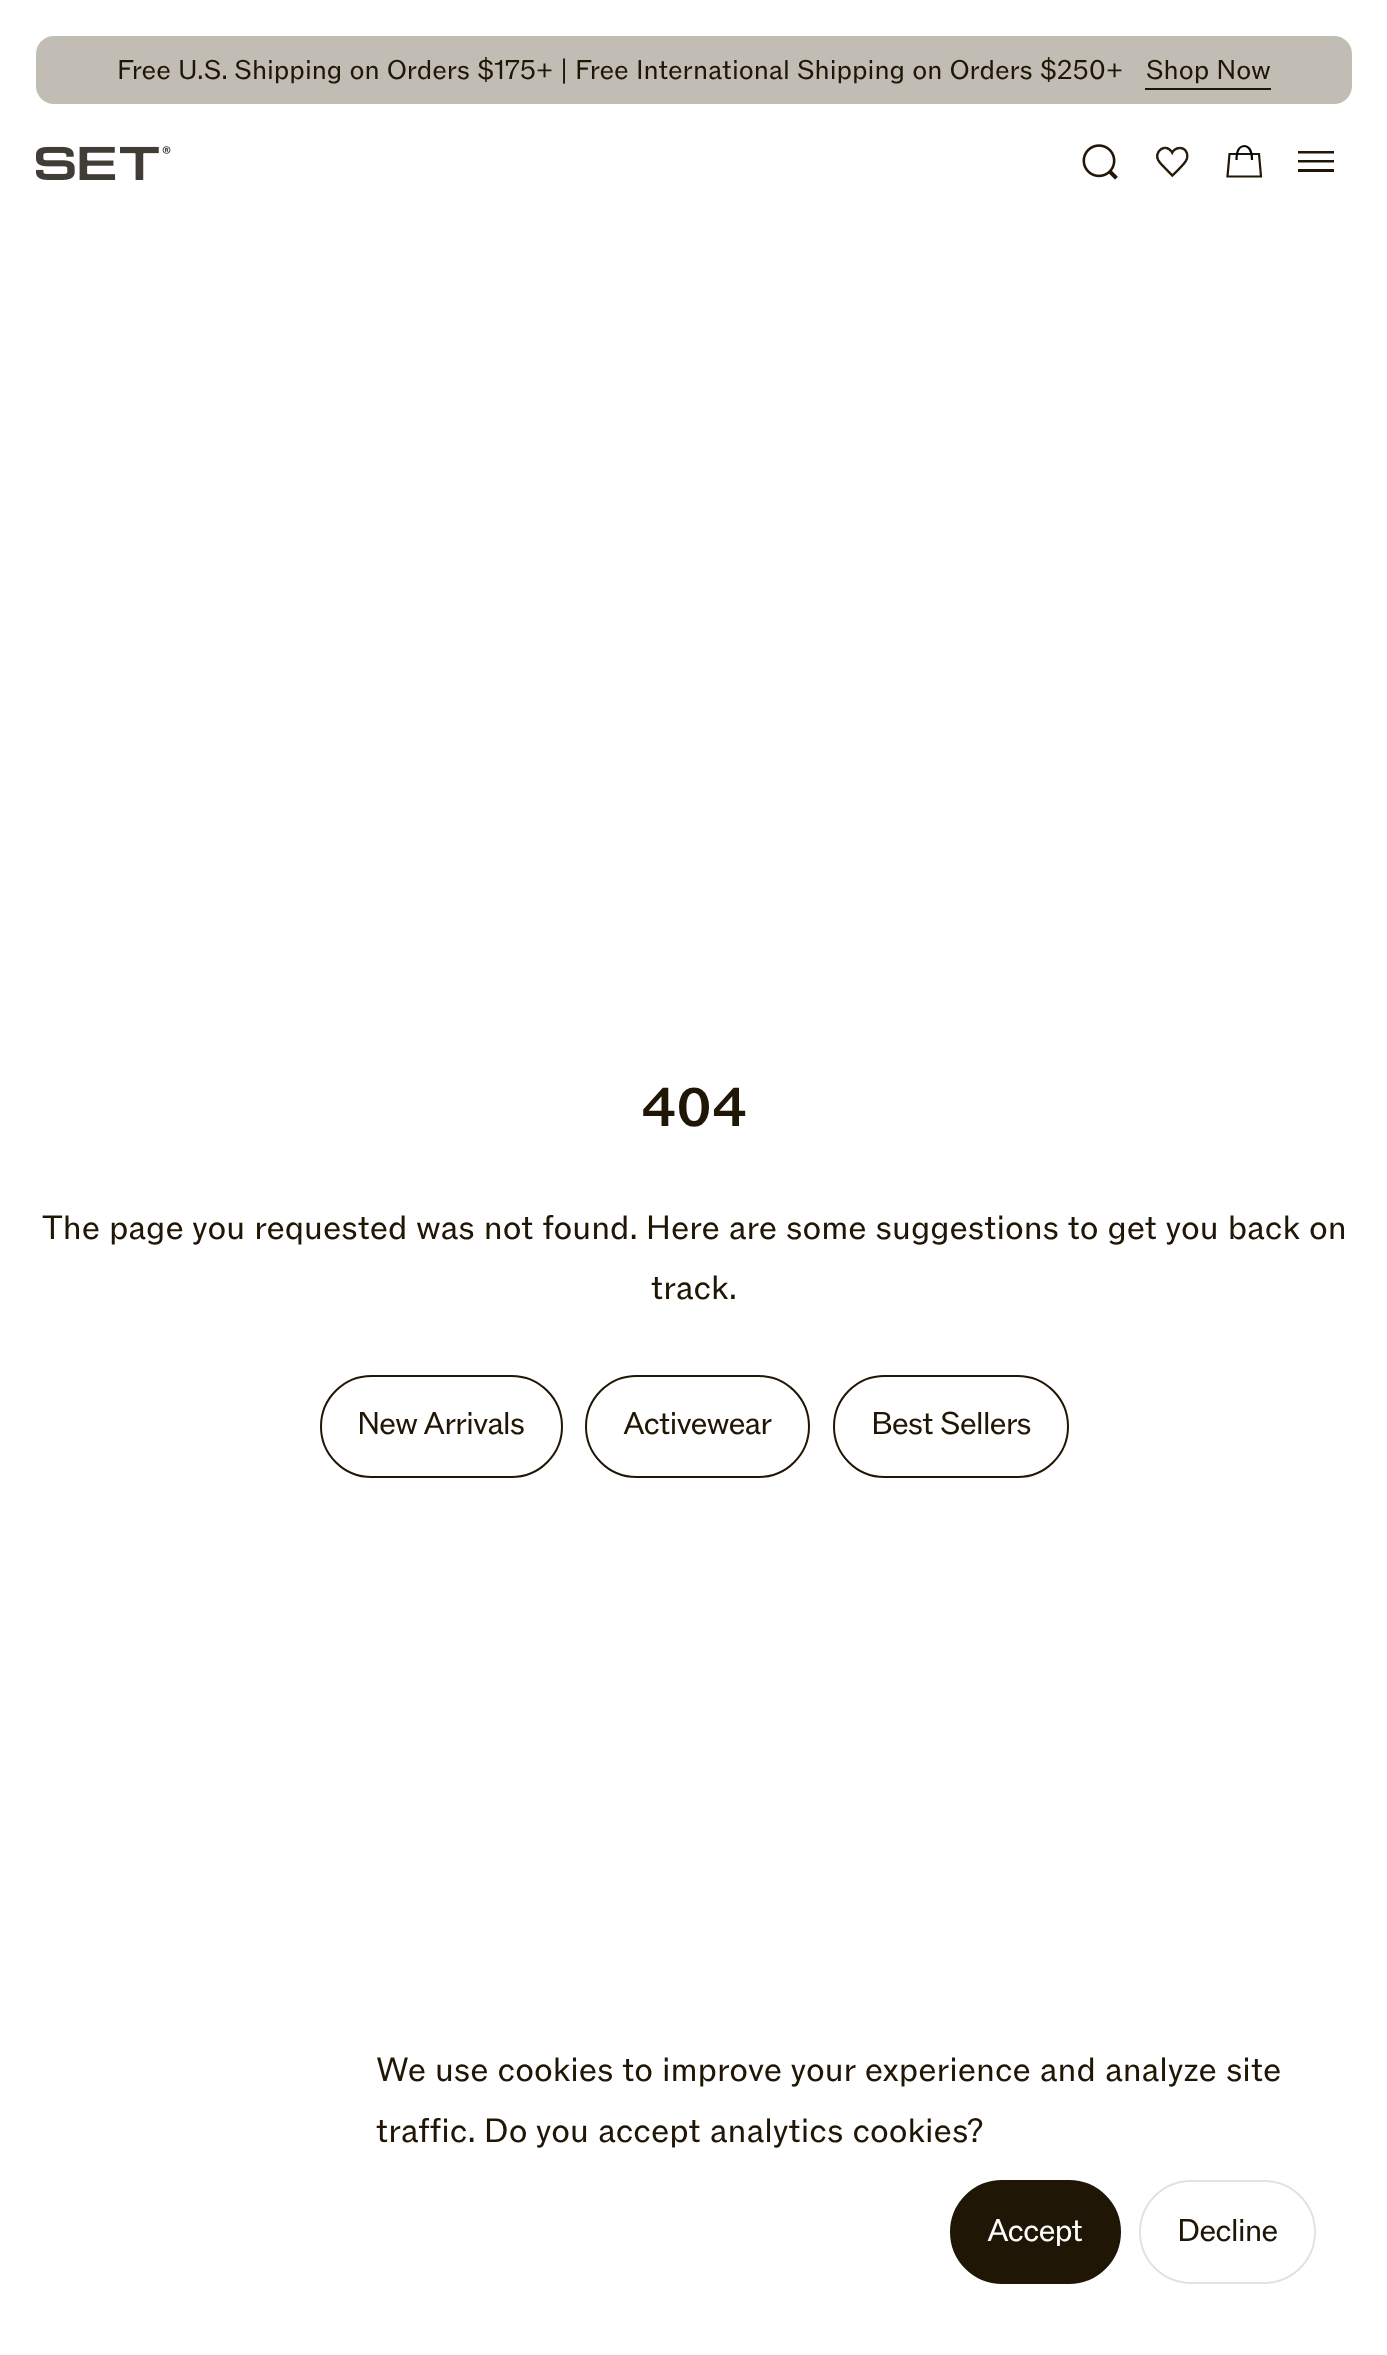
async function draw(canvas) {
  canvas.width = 1387
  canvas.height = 2355
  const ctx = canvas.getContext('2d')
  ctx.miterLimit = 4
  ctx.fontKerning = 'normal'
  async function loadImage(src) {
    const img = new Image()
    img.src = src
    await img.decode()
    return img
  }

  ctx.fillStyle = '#fff'
  ctx.fillRect(0, 0, 1387, 2355)
  ctx.fillStyle = '#c2bdb4'
  ctx.beginPath()
  ctx.roundRect(36, 36, 1316, 68, 18)
  ctx.fill()
  ctx.font = '27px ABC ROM'
  ctx.fillStyle = '#201605'
  ctx.fillText('Free U.S. Shipping on Orders $175+ | Free International Shipping on Orders $250+', 117, 79)
  ctx.fillText('Shop Now', 1146, 79)
  ctx.fillRect(1145, 88, 126, 2)
  ctx.drawImage(await loadImage('image0.png'), 36, 146, 135, 34)
  ctx.drawImage(await loadImage('image1.png'), 1082, 144, 36, 36)
  ctx.drawImage(await loadImage('image2.png'), 1156, 146, 33, 32)
  ctx.beginPath()
  ctx.moveTo(1229.5, 154)
  ctx.lineTo(1259, 154)
  ctx.lineTo(1261, 176.5)
  ctx.lineTo(1227.5, 176.5)
  ctx.closePath()
  ctx.strokeStyle = '#201605'
  ctx.lineWidth = 2.2
  ctx.stroke()
  ctx.beginPath()
  ctx.moveTo(1252, 160)
  ctx.bezierCurveTo(1252, 147.5, 1246.5, 146, 1244.5, 146)
  ctx.bezierCurveTo(1242, 146, 1236.5, 147.5, 1236.5, 160)
  ctx.strokeStyle = '#000'
  ctx.stroke()
  ctx.beginPath()
  ctx.moveTo(1334, 172)
  ctx.lineTo(1298, 172)
  ctx.lineTo(1298, 169)
  ctx.lineTo(1334, 169)
  ctx.closePath()
  ctx.moveTo(1334, 162.5)
  ctx.lineTo(1298, 162.5)
  ctx.lineTo(1298, 160)
  ctx.lineTo(1334, 160)
  ctx.closePath()
  ctx.moveTo(1334, 153.5)
  ctx.lineTo(1298, 153.5)
  ctx.lineTo(1298, 151)
  ctx.lineTo(1334, 151)
  ctx.closePath()
  ctx.fill()
  ctx.font = '500 54px ABC ROM'
  ctx.fillText('404', 641, 1126)
  ctx.font = '33.75px ABC ROM'
  ctx.fillText('The page you requested was not found. Here are some suggestions to get you back on', 42, 1239)
  ctx.fillText('track.', 651, 1299)
  ctx.beginPath()
  ctx.roundRect(321, 1376, 241, 101, 50.5)
  ctx.strokeStyle = '#201605'
  ctx.lineWidth = 2
  ctx.stroke()
  ctx.letterSpacing = '-1px'
  ctx.font = '31.5px ABC ROM'
  ctx.fillText('New Arrivals', 357, 1434)
  ctx.beginPath()
  ctx.roundRect(586, 1376, 223, 101, 50.5)
  ctx.stroke()
  ctx.fillText('Activewear', 623, 1434)
  ctx.beginPath()
  ctx.roundRect(834, 1376, 234, 101, 50.5)
  ctx.stroke()
  ctx.fillText('Best Sellers', 871, 1434)
  ctx.letterSpacing = '0px'
  ctx.font = '33.75px ABC ROM'
  ctx.fillText('We use cookies to improve your experience and analyze site', 376, 2081)
  ctx.fillText('traffic. Do you accept analytics cookies?', 376, 2142)
  ctx.beginPath()
  ctx.roundRect(951, 2181, 169, 102, 51)
  ctx.fill()
  ctx.stroke()
  ctx.letterSpacing = '-1px'
  ctx.font = '31.5px ABC ROM'
  ctx.fillStyle = '#fff'
  ctx.fillText('Accept', 987, 2241)
  ctx.beginPath()
  ctx.roundRect(1140, 2181, 175, 102, 51)
  ctx.strokeStyle = '#e3e2de'
  ctx.stroke()
  ctx.fillStyle = '#201605'
  ctx.fillText('Decline', 1177, 2241)
}

draw(document.querySelector('canvas'))
